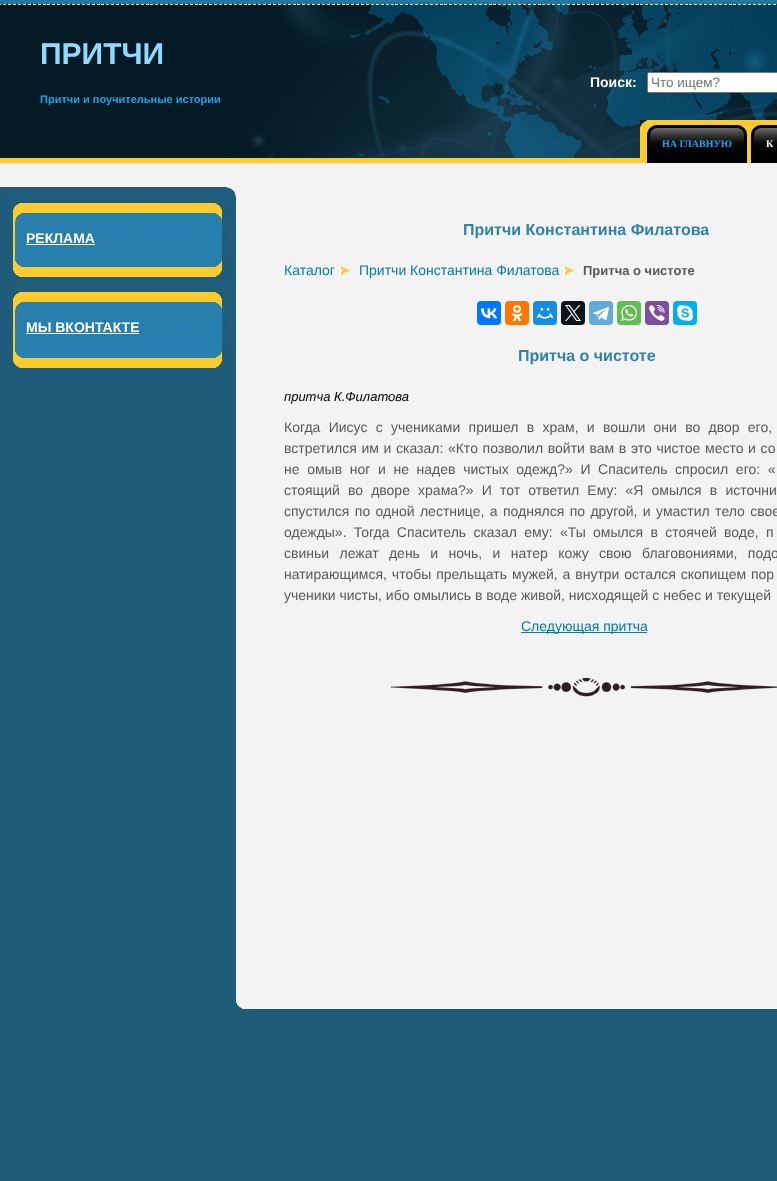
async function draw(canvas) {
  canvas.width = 777
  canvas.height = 1181
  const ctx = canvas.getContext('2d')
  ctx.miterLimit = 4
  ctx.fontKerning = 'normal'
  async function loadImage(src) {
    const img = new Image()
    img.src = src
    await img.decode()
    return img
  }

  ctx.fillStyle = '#1f5c7b'
  ctx.fillRect(0, 0, 777, 1181)
  ctx.drawImage(await loadImage('image0.png'), 0, 158, 751, 5)
  ctx.drawImage(await loadImage('image1.png'), 0, 0, 777, 158)
  ctx.font = 'bold 30px Liberation Sans'
  ctx.fillStyle = '#8fdaff'
  ctx.fillText('ПРИТЧИ', 40, 64)
  ctx.font = 'bold 11px Liberation Sans'
  ctx.fillStyle = '#1aa3e8'
  ctx.fillText('Притчи и поучительные истории', 40, 103)
  ctx.font = 'bold 14px Liberation Sans'
  ctx.fillStyle = '#fff'
  ctx.fillText('Поиск:', 590, 87)
  ctx.beginPath()
  ctx.roundRect(647.5, 72.5, 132, 20, 1.5)
  ctx.fill()
  ctx.strokeStyle = '#767676'
  ctx.stroke()
  ctx.font = '13.5px Liberation Sans'
  ctx.fillStyle = '#757575'
  ctx.fillText('Что ищем?', 651, 87)
  ctx.drawImage(await loadImage('image2.png'), 640, 120, 7, 38)
  ctx.fillStyle = '#fdcb2e'
  ctx.fillRect(647, 120, 130, 38)
  ctx.drawImage(await loadImage('image3.png'), 647, 125, 18, 38)
  ctx.drawImage(await loadImage('image4.png'), 665, 125, 82, 38)
  ctx.font = 'bold 10px Liberation Serif'
  ctx.fillStyle = '#05acff'
  ctx.fillText('НА ГЛАВНУЮ', 662, 147)
  ctx.drawImage(await loadImage('image3.png'), 751, 125, 18, 38)
  ctx.drawImage(await loadImage('image5.png'), 769, 125, 8, 38)
  ctx.fillStyle = '#fff'
  ctx.fillText('К', 766, 147)
  ctx.fillStyle = '#f3f3f3'
  ctx.fillRect(0, 163, 777, 24)
  ctx.drawImage(await loadImage('image6.png'), 226, 187, 551, 13)
  ctx.drawImage(await loadImage('image7.png'), 13, 252, 209, 9)
  ctx.drawImage(await loadImage('image8.png'), 13, 193, 220, 59)
  ctx.font = 'bold 14px Liberation Sans'
  ctx.fillStyle = '#fff'
  ctx.fillText('РЕКЛАМА', 26, 243)
  ctx.fillRect(26, 244, 69, 1)
  ctx.drawImage(await loadImage('image9.png'), 13, 261, 216, 16)
  ctx.drawImage(await loadImage('image10.png'), 13, 341, 209, 11)
  ctx.drawImage(await loadImage('image8.png'), 13, 282, 220, 59)
  ctx.fillText('МЫ ВКОНТАКТЕ', 26, 332)
  ctx.fillRect(26, 333, 113, 1)
  ctx.drawImage(await loadImage('image9.png'), 13, 352, 216, 16)
  ctx.fillStyle = '#f3f3f3'
  ctx.fillRect(236, 200, 541, 809)
  ctx.drawImage(await loadImage('image11.png'), 236, 1001, 7, 8)
  ctx.font = 'bold 16px Liberation Sans'
  ctx.fillStyle = '#2c83b0'
  ctx.fillText('Притчи Константина Филатова', 463, 235)
  ctx.font = '14px Liberation Sans'
  ctx.fillStyle = '#0479b4'
  ctx.fillText('Каталог', 284, 275)
  ctx.drawImage(await loadImage('image12.png'), 341, 266, 9, 9)
  ctx.fillText('Притчи Константина Филатова', 359, 275)
  ctx.drawImage(await loadImage('image12.png'), 565, 266, 9, 9)
  ctx.font = 'bold 13px Liberation Sans'
  ctx.fillStyle = '#595959'
  ctx.fillText('Притча о чистоте', 583, 275)
  ctx.fillStyle = '#07f'
  ctx.beginPath()
  ctx.roundRect(477, 301, 24, 24, 4)
  ctx.fill()
  ctx.drawImage(await loadImage('image13.png'), 481, 308, 16, 11)
  ctx.fillStyle = '#f70'
  ctx.beginPath()
  ctx.roundRect(505, 301, 24, 24, 4)
  ctx.fill()
  ctx.drawImage(await loadImage('image14.png'), 511, 305, 12, 16)
  ctx.fillStyle = '#168de2'
  ctx.beginPath()
  ctx.roundRect(533, 301, 24, 24, 4)
  ctx.fill()
  ctx.drawImage(await loadImage('image15.png'), 537, 308, 16, 11)
  ctx.fillStyle = '#0f1419'
  ctx.beginPath()
  ctx.roundRect(561, 301, 24, 24, 4)
  ctx.fill()
  ctx.drawImage(await loadImage('image16.png'), 565, 305, 16, 16)
  ctx.fillStyle = '#64a9dc'
  ctx.beginPath()
  ctx.roundRect(589, 301, 24, 24, 4)
  ctx.fill()
  ctx.drawImage(await loadImage('image17.png'), 593, 307, 16, 14)
  ctx.fillStyle = '#65bc54'
  ctx.beginPath()
  ctx.roundRect(617, 301, 24, 24, 4)
  ctx.fill()
  ctx.drawImage(await loadImage('image18.png'), 621, 305, 16, 16)
  ctx.fillStyle = '#7b519d'
  ctx.beginPath()
  ctx.roundRect(645, 301, 24, 24, 4)
  ctx.fill()
  ctx.drawImage(await loadImage('image19.png'), 649, 305, 16, 16)
  ctx.fillStyle = '#00aff0'
  ctx.beginPath()
  ctx.roundRect(673, 301, 24, 24, 4)
  ctx.fill()
  ctx.drawImage(await loadImage('image20.png'), 677, 305, 16, 16)
  ctx.font = 'bold 16px Liberation Sans'
  ctx.fillStyle = '#2c83b0'
  ctx.fillText('Притча о чистоте', 518, 361)
  ctx.font = 'italic 13px Liberation Sans'
  ctx.fillStyle = '#000'
  ctx.fillText('притча К.Филатова', 284, 401)
  ctx.wordSpacing = '4.4px'
  ctx.font = '14px Liberation Sans'
  ctx.fillStyle = '#595959'
  ctx.fillText('Когда Иисус с учениками пришел в храм, и вошли они во двор его,', 284, 432)
  ctx.wordSpacing = '0.75px'
  ctx.fillText('встретился им и сказал: «Кто позволил войти вам в это чистое место и со', 284, 453)
  ctx.wordSpacing = '3.75px'
  ctx.fillText('не омыв ног и не надев чистых одежд?» И Спаситель спросил его: «', 284, 474)
  ctx.wordSpacing = '4.25px'
  ctx.fillText('стоящий во дворе храма?» И тот ответил Ему: «Я омылся в источни', 284, 495)
  ctx.wordSpacing = '1.5px'
  ctx.fillText('спустился по одной лестнице, а поднялся по другой, и умастил тело свое', 284, 516)
  ctx.wordSpacing = '3.4px'
  ctx.fillText('одежды». Тогда Спаситель сказал ему: «Ты омылся в стоячей воде, п', 284, 537)
  ctx.wordSpacing = '6.5px'
  ctx.fillText('свиньи лежат день и ночь, и натер кожу свою благовониями, подо', 284, 558)
  ctx.wordSpacing = '1px'
  ctx.fillText('натирающимся, чтобы прельщать мужей, а внутри остался скопищем пор', 284, 579)
  ctx.wordSpacing = '0px'
  ctx.fillText('ученики чисты, ибо омылись в воде живой, нисходящей с небес и текущей', 284, 600)
  ctx.fillStyle = '#0479b4'
  ctx.fillRect(521, 632, 126, 1)
  ctx.fillText('Cледующая притча', 521, 631)
  ctx.drawImage(await loadImage('image21.png'), 391, 677, 386, 20)
}

draw(document.querySelector('canvas'))
